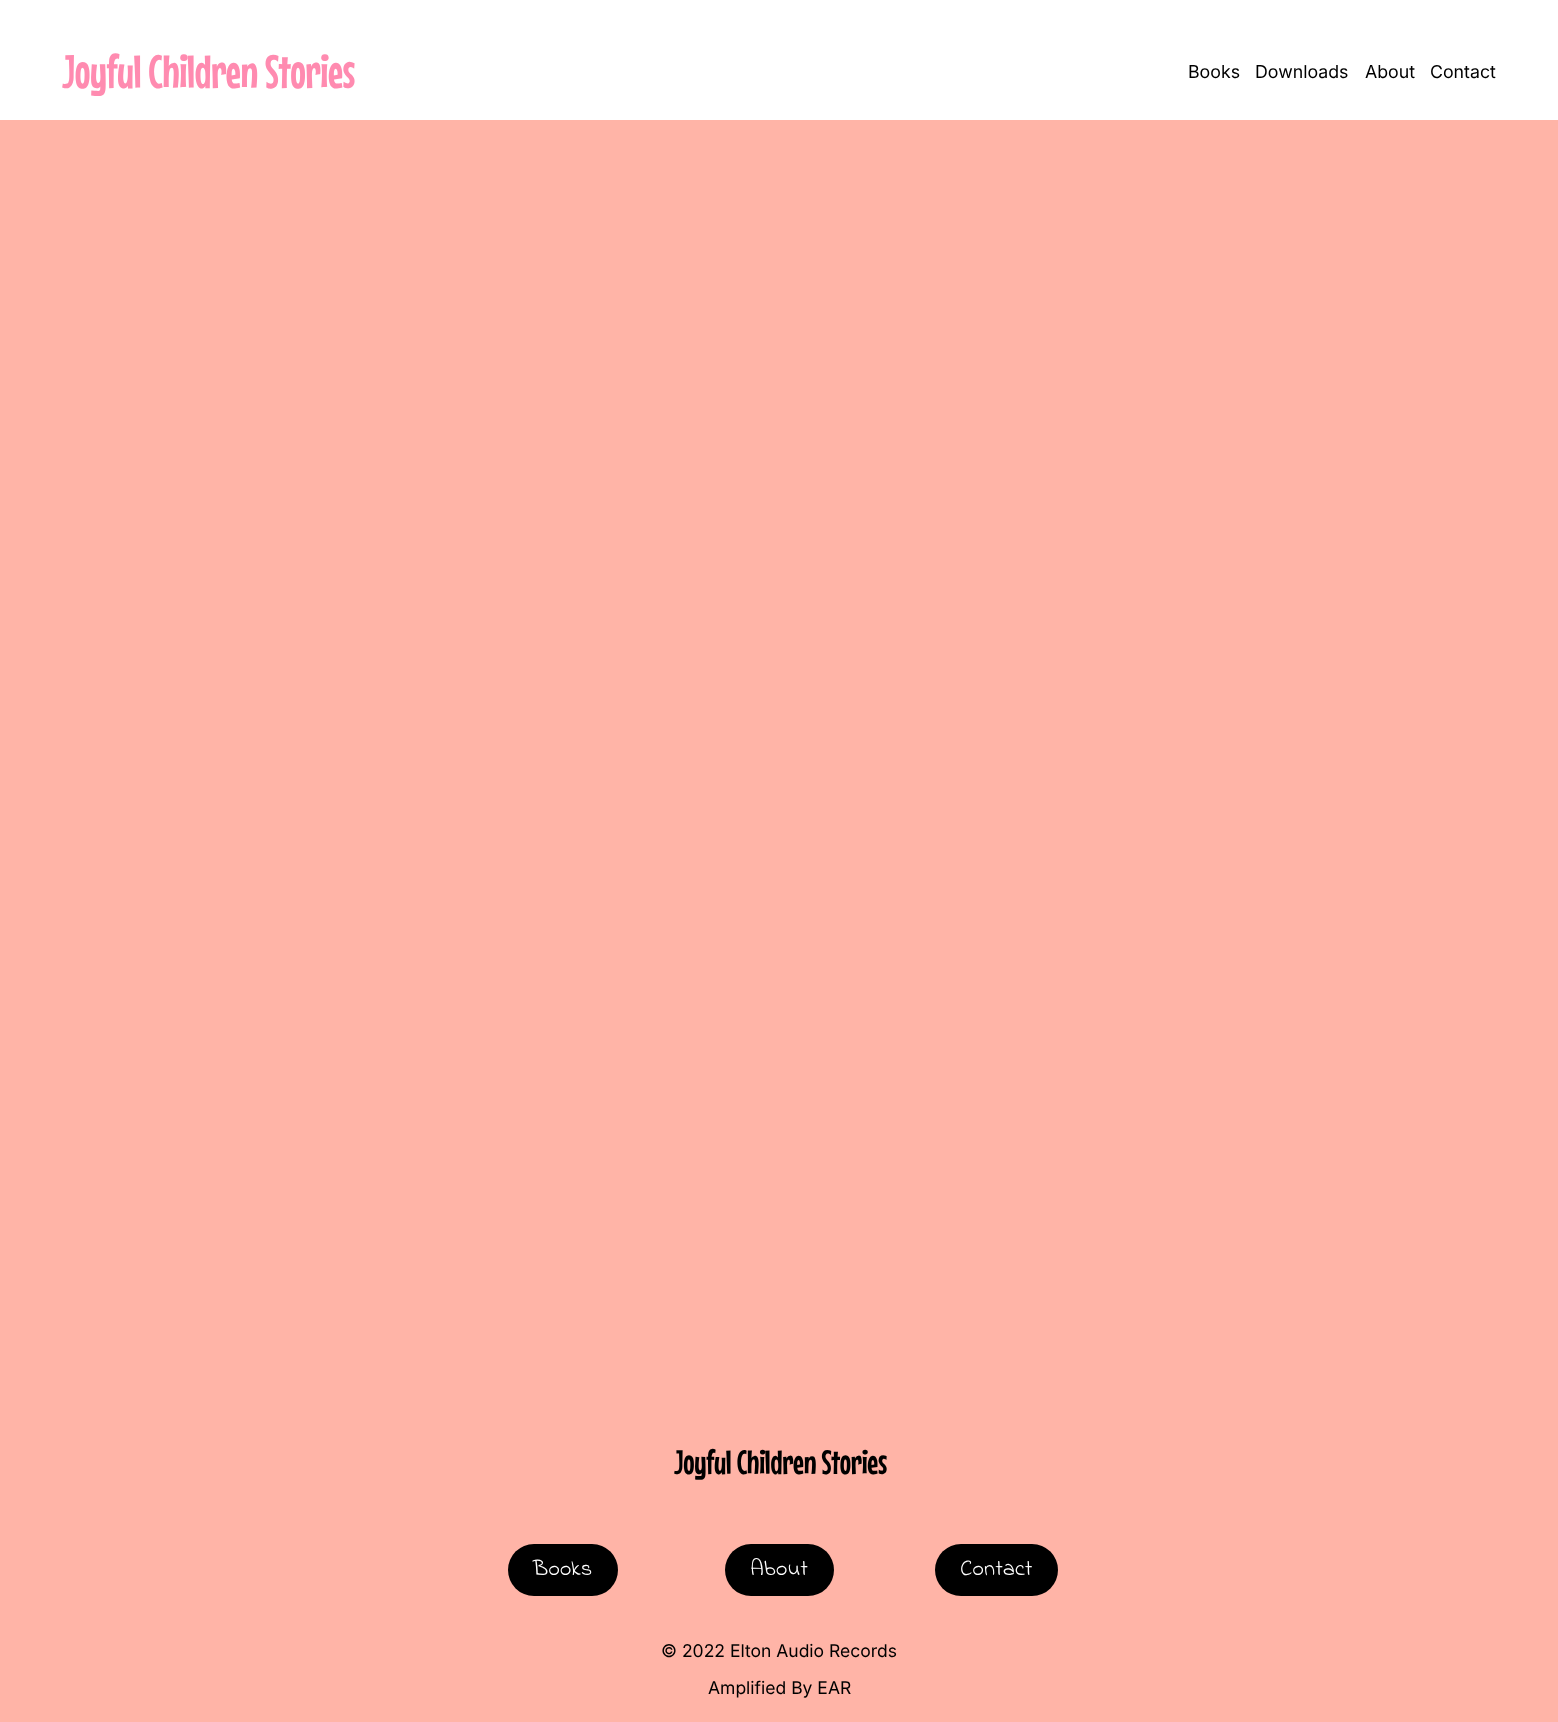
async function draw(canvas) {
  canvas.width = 1558
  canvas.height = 1722
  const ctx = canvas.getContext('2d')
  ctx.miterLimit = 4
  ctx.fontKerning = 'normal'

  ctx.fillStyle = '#ffb4a7'
  ctx.fillRect(0, 0, 1558, 1722)
  ctx.fillStyle = '#fff'
  ctx.fillRect(0, 0, 1558, 120)
  ctx.letterSpacing = '-0.5px'
  ctx.font = '46.75px Mouse Memoirs'
  ctx.fillStyle = '#ff8bb0'
  ctx.fillText('Joyful Children Stories', 62, 88)
  ctx.letterSpacing = '0px'
  ctx.font = '17.75px Inter'
  ctx.fillStyle = '#000'
  ctx.fillText('Books', 1188, 78)
  ctx.fillText('Downloads', 1255, 78)
  ctx.fillText('About', 1365, 78)
  ctx.fillText('Contact', 1430, 78)
  ctx.letterSpacing = '-0.3px'
  ctx.font = '33.75px Mouse Memoirs'
  ctx.fillText('Joyful Children Stories', 674, 1474)
  ctx.beginPath()
  ctx.roundRect(508, 1544, 110, 52, 26)
  ctx.fill()
  ctx.letterSpacing = '0px'
  ctx.font = '22.5px Indie Flower'
  ctx.fillStyle = '#fff'
  ctx.fillText('Books', 533, 1575)
  ctx.fillStyle = '#000'
  ctx.beginPath()
  ctx.roundRect(725, 1544, 109, 52, 26)
  ctx.fill()
  ctx.fillStyle = '#fff'
  ctx.fillText('About', 750, 1575)
  ctx.fillStyle = '#000'
  ctx.beginPath()
  ctx.roundRect(935, 1544, 123, 52, 26)
  ctx.fill()
  ctx.fillStyle = '#fff'
  ctx.fillText('Contact', 960, 1575)
  ctx.font = '17.5px Inter'
  ctx.fillStyle = '#000'
  ctx.fillText('© 2022 Elton Audio Records', 661, 1657)
  ctx.fillText('Amplified By EAR', 708, 1694)
}

draw(document.querySelector('canvas'))
